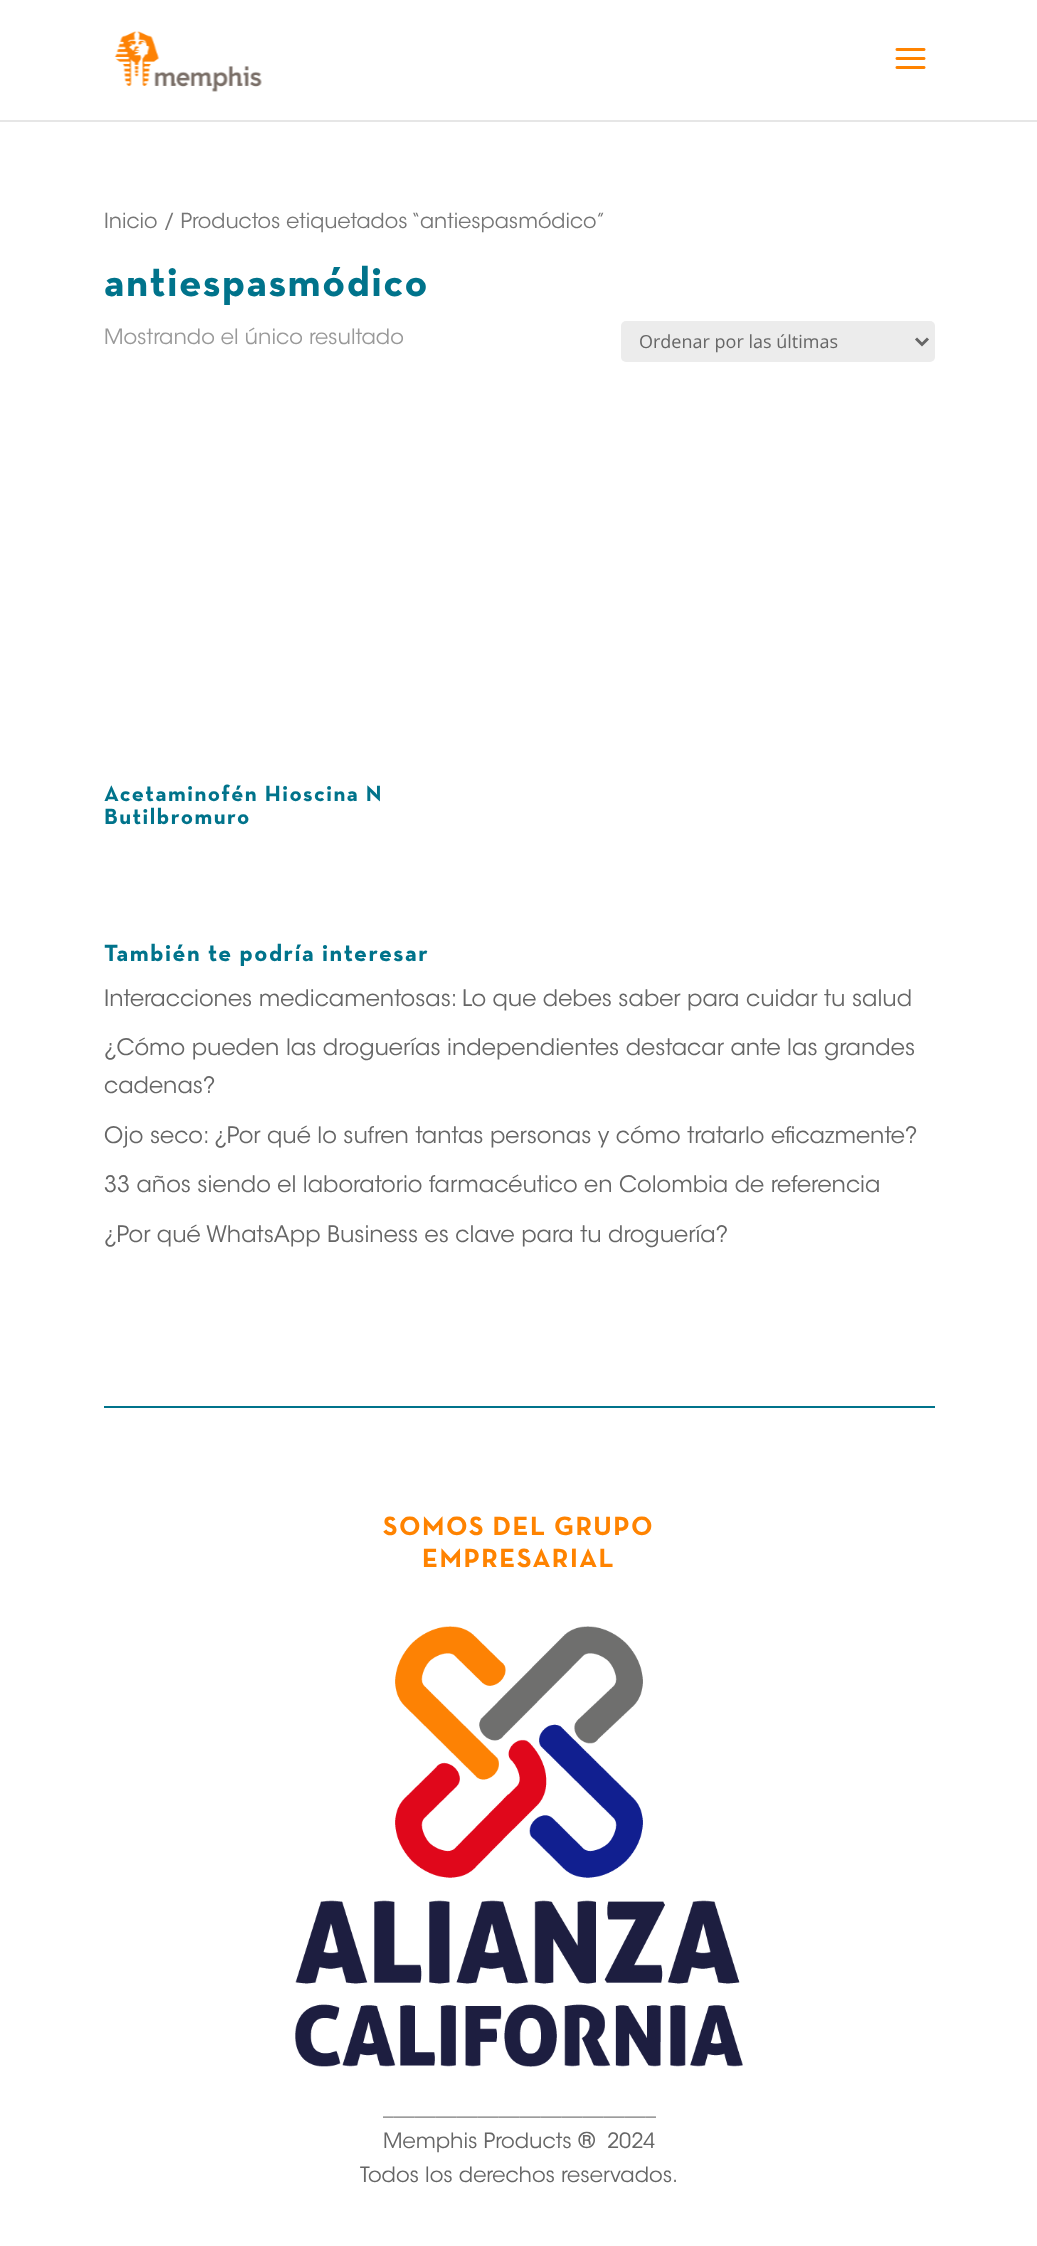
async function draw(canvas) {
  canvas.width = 1037
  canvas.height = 2246
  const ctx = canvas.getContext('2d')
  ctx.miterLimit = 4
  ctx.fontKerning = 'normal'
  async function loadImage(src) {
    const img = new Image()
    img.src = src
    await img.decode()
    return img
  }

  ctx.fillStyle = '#fff'
  ctx.fillRect(0, 0, 1037, 2246)
  ctx.fillStyle = '#e6e6e6'
  ctx.fillRect(0, 120, 1037, 2)
  ctx.drawImage(await loadImage('image0.png'), 114, 31, 148, 61)
  ctx.drawImage(await loadImage('image1.png'), 895, 48, 31, 21)
  ctx.font = '300 20.7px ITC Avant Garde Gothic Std'
  ctx.fillStyle = '#767676'
  ctx.fillText('Inicio / Productos etiquetados “antiespasmódico”', 104, 228)
  ctx.letterSpacing = '1.5px'
  ctx.font = 'bold 42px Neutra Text'
  ctx.fillStyle = '#00738b'
  ctx.fillText('antiespasmódico', 104, 296)
  ctx.letterSpacing = '0px'
  ctx.font = '300 21px ITC Avant Garde Gothic Std'
  ctx.fillStyle = '#999'
  ctx.fillText('Mostrando el único resultado', 104, 344)
  ctx.fillStyle = '#ececec'
  ctx.beginPath()
  ctx.roundRect(621, 321, 314, 41, 5)
  ctx.fill()
  ctx.beginPath()
  ctx.moveTo(916, 338.5)
  ctx.lineTo(922, 344.5)
  ctx.lineTo(928, 338.5)
  ctx.strokeStyle = '#666'
  ctx.lineWidth = 3
  ctx.stroke()
  ctx.font = '18px Open Sans'
  ctx.fillStyle = '#666'
  ctx.fillText('Ordenar por las últimas', 639, 348)
  ctx.letterSpacing = '1.5px'
  ctx.font = 'bold 22.5px Neutra Text'
  ctx.fillStyle = '#00738b'
  ctx.fillText('Acetaminofén Hioscina N', 104, 801)
  ctx.fillText('Butilbromuro', 104, 824)
  ctx.font = 'bold 24px Neutra Text'
  ctx.fillText('También te podría interesar', 104, 961)
  ctx.letterSpacing = '0px'
  ctx.font = '300 22.5px ITC Avant Garde Gothic Std'
  ctx.fillStyle = '#666'
  ctx.fillText('Interacciones medicamentosas: Lo que debes saber para cuidar tu salud', 104, 1006)
  ctx.fillText('¿Cómo pueden las droguerías independientes destacar ante las grandes', 104, 1055)
  ctx.fillText('cadenas?', 104, 1093)
  ctx.fillText('Ojo seco: ¿Por qué lo sufren tantas personas y cómo tratarlo eficazmente?', 104, 1143)
  ctx.fillText('33 años siendo el laboratorio farmacéutico en Colombia de referencia', 104, 1192)
  ctx.fillText('¿Por qué WhatsApp Business es clave para tu droguería?', 104, 1242)
  ctx.fillStyle = '#00738b'
  ctx.fillRect(104, 1406, 831, 2)
  ctx.letterSpacing = '1.5px'
  ctx.font = 'bold 27px Neutra Text'
  ctx.fillStyle = '#ff8300'
  ctx.fillText('SOMOS DEL GRUPO', 383, 1535)
  ctx.fillText('EMPRESARIAL', 422, 1567)
  ctx.drawImage(await loadImage('image2.png'), 295, 1626, 448, 441)
  ctx.letterSpacing = '0px'
  ctx.font = '300 21px ITC Avant Garde Gothic Std'
  ctx.fillStyle = '#666'
  ctx.fillText('__________________________', 383, 2115)
  ctx.fillText('Memphis Products', 383, 2148)
  ctx.font = 'bold 21px ITC Avant Garde Gothic Std'
  ctx.fillText('®', 578, 2148)
  ctx.font = '300 21px ITC Avant Garde Gothic Std'
  ctx.fillText('2024', 607, 2148)
  ctx.fillText('Todos los derechos reservados.', 360, 2182)
}

draw(document.querySelector('canvas'))
